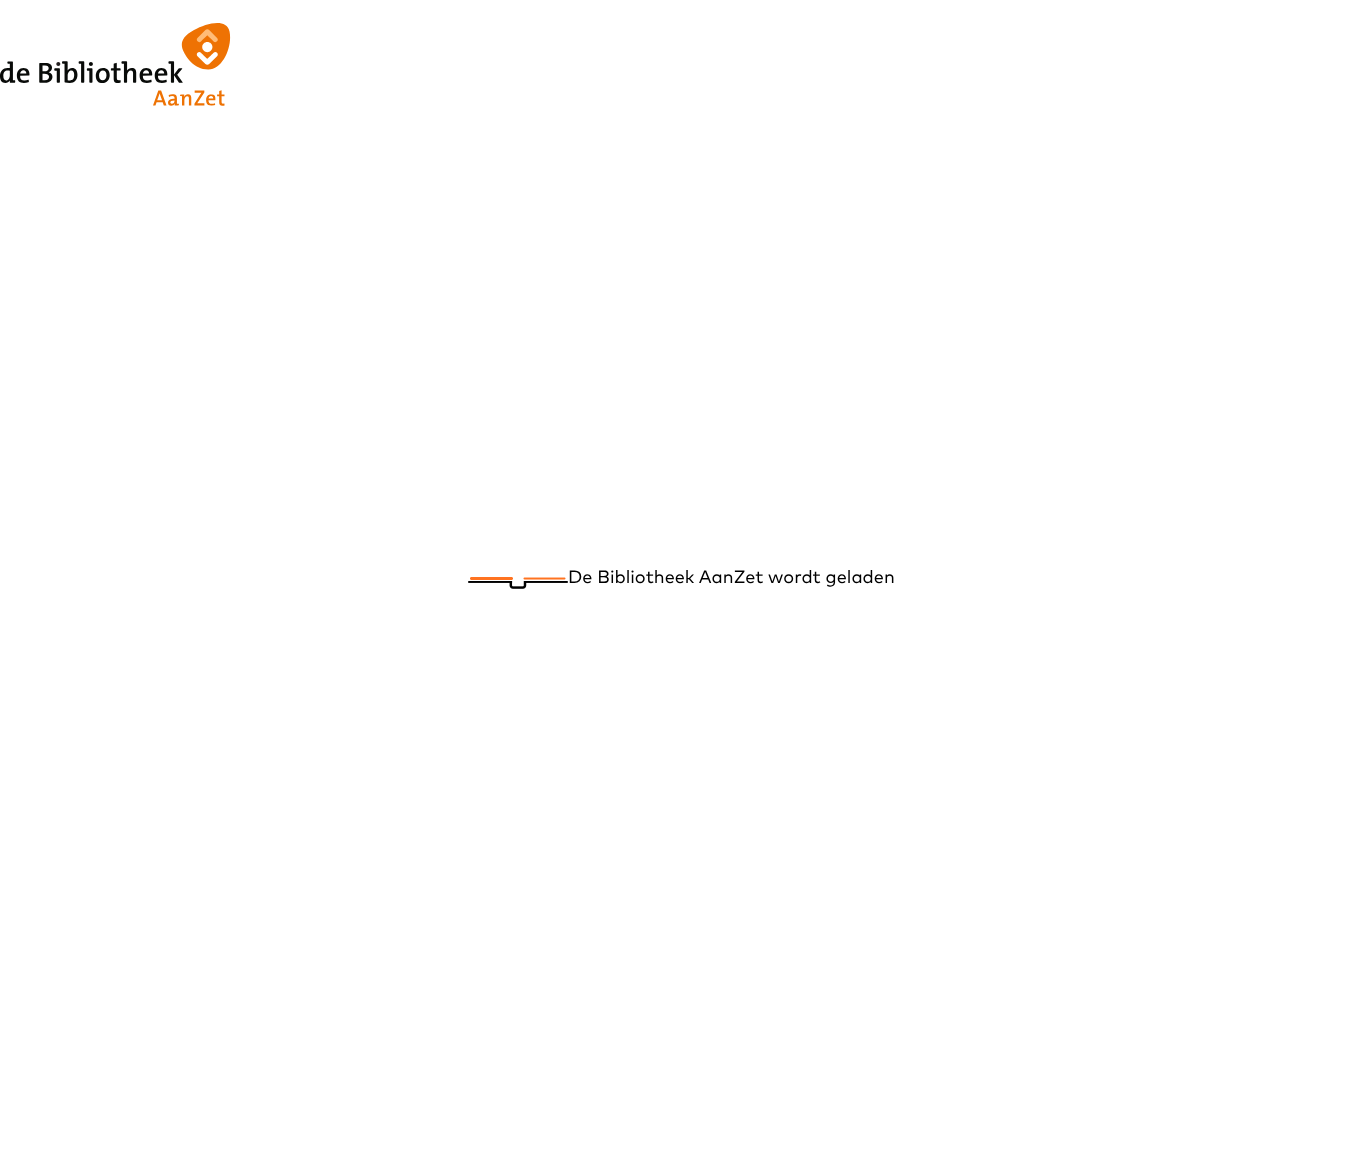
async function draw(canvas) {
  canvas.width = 1362
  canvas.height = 1165
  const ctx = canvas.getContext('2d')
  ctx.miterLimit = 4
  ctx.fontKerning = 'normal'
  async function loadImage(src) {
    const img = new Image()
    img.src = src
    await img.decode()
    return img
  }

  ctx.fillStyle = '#fff'
  ctx.fillRect(0, 0, 1362, 1165)
  ctx.drawImage(await loadImage('image0.png'), 0, 23, 231, 83)
  ctx.drawImage(await loadImage('image1.png'), 468, 577, 100, 12)
  ctx.font = '18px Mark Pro'
  ctx.fillStyle = '#000'
  ctx.fillText('De Bibliotheek AanZet wordt geladen', 568, 583)
}

draw(document.querySelector('canvas'))
